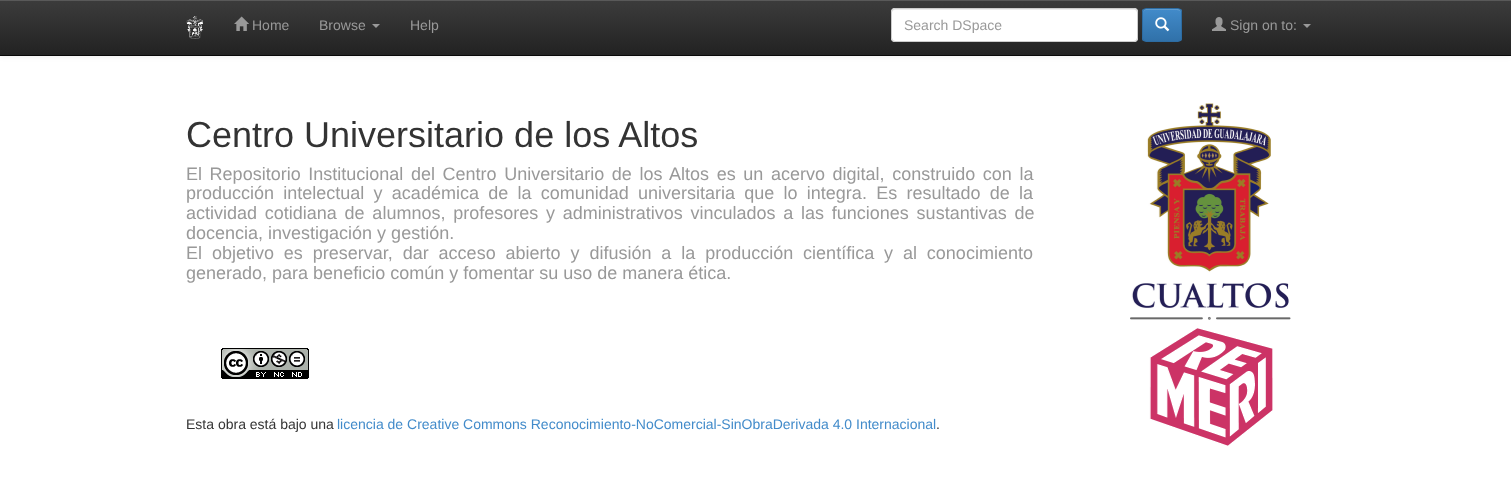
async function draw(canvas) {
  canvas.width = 1511
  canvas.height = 477
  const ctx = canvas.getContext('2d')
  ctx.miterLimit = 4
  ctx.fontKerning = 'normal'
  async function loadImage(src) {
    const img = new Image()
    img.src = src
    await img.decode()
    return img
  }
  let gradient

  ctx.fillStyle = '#fff'
  ctx.fillRect(0, 0, 1511, 477)
  ctx.fillStyle = '#00000012'
  ctx.filter = 'blur(2.5px)'
  ctx.beginPath()
  ctx.rect(0, 1, 1511, 56)
  ctx.fill()
  ctx.filter = 'none'
  gradient = ctx.createLinearGradient(756, 0, 756, 55)
  gradient.addColorStop(0, '#3c3c3c')
  gradient.addColorStop(1, '#222')
  ctx.fillStyle = gradient
  ctx.fillRect(0, 1, 1511, 54)
  ctx.fillStyle = '#595959'
  ctx.fillRect(0, 0, 1511, 1)
  ctx.fillStyle = '#080808'
  ctx.fillRect(0, 55, 1511, 1)
  ctx.drawImage(await loadImage('image0.png'), 186, 16, 17, 23)
  ctx.drawImage(await loadImage('image1.png'), 234, 16, 15, 15)
  ctx.font = '14px Liberation Sans'
  ctx.fillStyle = '#999'
  ctx.fillText('Home', 252, 30)
  ctx.fillText('Browse', 319, 30)
  ctx.beginPath()
  ctx.moveTo(372, 24)
  ctx.lineTo(380, 24)
  ctx.lineTo(376, 28)
  ctx.closePath()
  ctx.fill()
  ctx.fillText('Help', 410, 30)
  ctx.fillStyle = '#fff'
  ctx.beginPath()
  ctx.roundRect(891, 8, 247, 34, 4)
  ctx.fill()
  ctx.fillStyle = '#ececec'
  ctx.beginPath()
  ctx.moveTo(895, 10)
  ctx.lineTo(1135, 10)
  ctx.lineTo(1137, 11)
  ctx.lineTo(1137, 13)
  ctx.bezierCurveTo(1137, 11, 1136, 9, 1134, 9)
  ctx.lineTo(895, 9)
  ctx.bezierCurveTo(893, 9, 892, 11, 892, 13)
  ctx.bezierCurveTo(892, 11, 893, 10, 895, 10)
  ctx.closePath()
  ctx.fill()
  ctx.beginPath()
  ctx.roundRect(891.5, 8.5, 246, 33, 3.5)
  ctx.strokeStyle = '#ccc'
  ctx.stroke()
  ctx.fillStyle = '#999'
  ctx.fillText('Search DSpace', 904, 30)
  ctx.save()
  ctx.beginPath()
  ctx.roundRect(1142, 8, 40, 34, 4)
  ctx.clip()
  gradient = ctx.createLinearGradient(1162, 9, 1162, 41)
  gradient.addColorStop(0, '#428bca')
  gradient.addColorStop(1, '#3071a9')
  ctx.fillStyle = gradient
  ctx.fillRect(1142, 9, 40, 32)
  ctx.restore()
  ctx.fillStyle = '#5e9cd1'
  ctx.beginPath()
  ctx.moveTo(1146, 10)
  ctx.lineTo(1173, 10)
  ctx.bezierCurveTo(1178.5, 10, 1180.5, 10.5, 1181, 12.5)
  ctx.bezierCurveTo(1181, 7.5, 1176.5, 9, 1172.5, 9)
  ctx.lineTo(1151.5, 9)
  ctx.bezierCurveTo(1148, 9, 1143, 8, 1143, 12.5)
  ctx.bezierCurveTo(1143.5, 11, 1144.5, 10, 1146, 10)
  ctx.closePath()
  ctx.fill()
  ctx.beginPath()
  ctx.roundRect(1142.5, 8.5, 39, 33, 3.5)
  ctx.strokeStyle = '#2d6ca2'
  ctx.stroke()
  ctx.drawImage(await loadImage('image2.png'), 1155, 17, 15, 15)
  ctx.drawImage(await loadImage('image3.png'), 1212, 17, 14, 14)
  ctx.fillStyle = '#999'
  ctx.fillText('Sign on to:', 1230, 30)
  ctx.beginPath()
  ctx.moveTo(1303, 24)
  ctx.lineTo(1311, 24)
  ctx.lineTo(1307, 28)
  ctx.closePath()
  ctx.fill()
  ctx.font = '36px Liberation Sans'
  ctx.fillStyle = '#333'
  ctx.fillText('Centro Universitario de los Altos', 186, 147)
  ctx.wordSpacing = '2.6px'
  ctx.font = '18px Liberation Sans'
  ctx.fillStyle = '#999'
  ctx.fillText('El Repositorio Institucional del Centro Universitario de los Altos es un acervo digital, construido con la', 186, 180)
  ctx.wordSpacing = '4.25px'
  ctx.fillText('producción intelectual y académica de la comunidad universitaria que lo integra. Es resultado de la', 186, 199)
  ctx.wordSpacing = '2.75px'
  ctx.fillText('actividad cotidiana de alumnos, profesores y administrativos vinculados a las funciones sustantivas de', 186, 219)
  ctx.wordSpacing = '0px'
  ctx.fillText('docencia, investigación y gestión.', 186, 239)
  ctx.wordSpacing = '4.9px'
  ctx.fillText('El objetivo es preservar, dar acceso abierto y difusión a la producción científica y al conocimiento', 186, 259)
  ctx.wordSpacing = '0px'
  ctx.fillText('generado, para beneficio común y fomentar su uso de manera ética.', 186, 279)
  ctx.drawImage(await loadImage('image4.png'), 221, 348, 88, 31)
  ctx.font = '14px Liberation Sans'
  ctx.fillStyle = '#333'
  ctx.fillText('Esta obra está bajo una', 186, 429)
  ctx.fillStyle = '#428bca'
  ctx.fillText('licencia de Creative Commons Reconocimiento-NoComercial-SinObraDerivada 4.0 Internacional', 337, 429)
  ctx.fillStyle = '#333'
  ctx.fillText('.', 936, 429)
  ctx.drawImage(await loadImage('image5.png'), 1130, 103, 161, 343)
}

draw(document.querySelector('canvas'))
